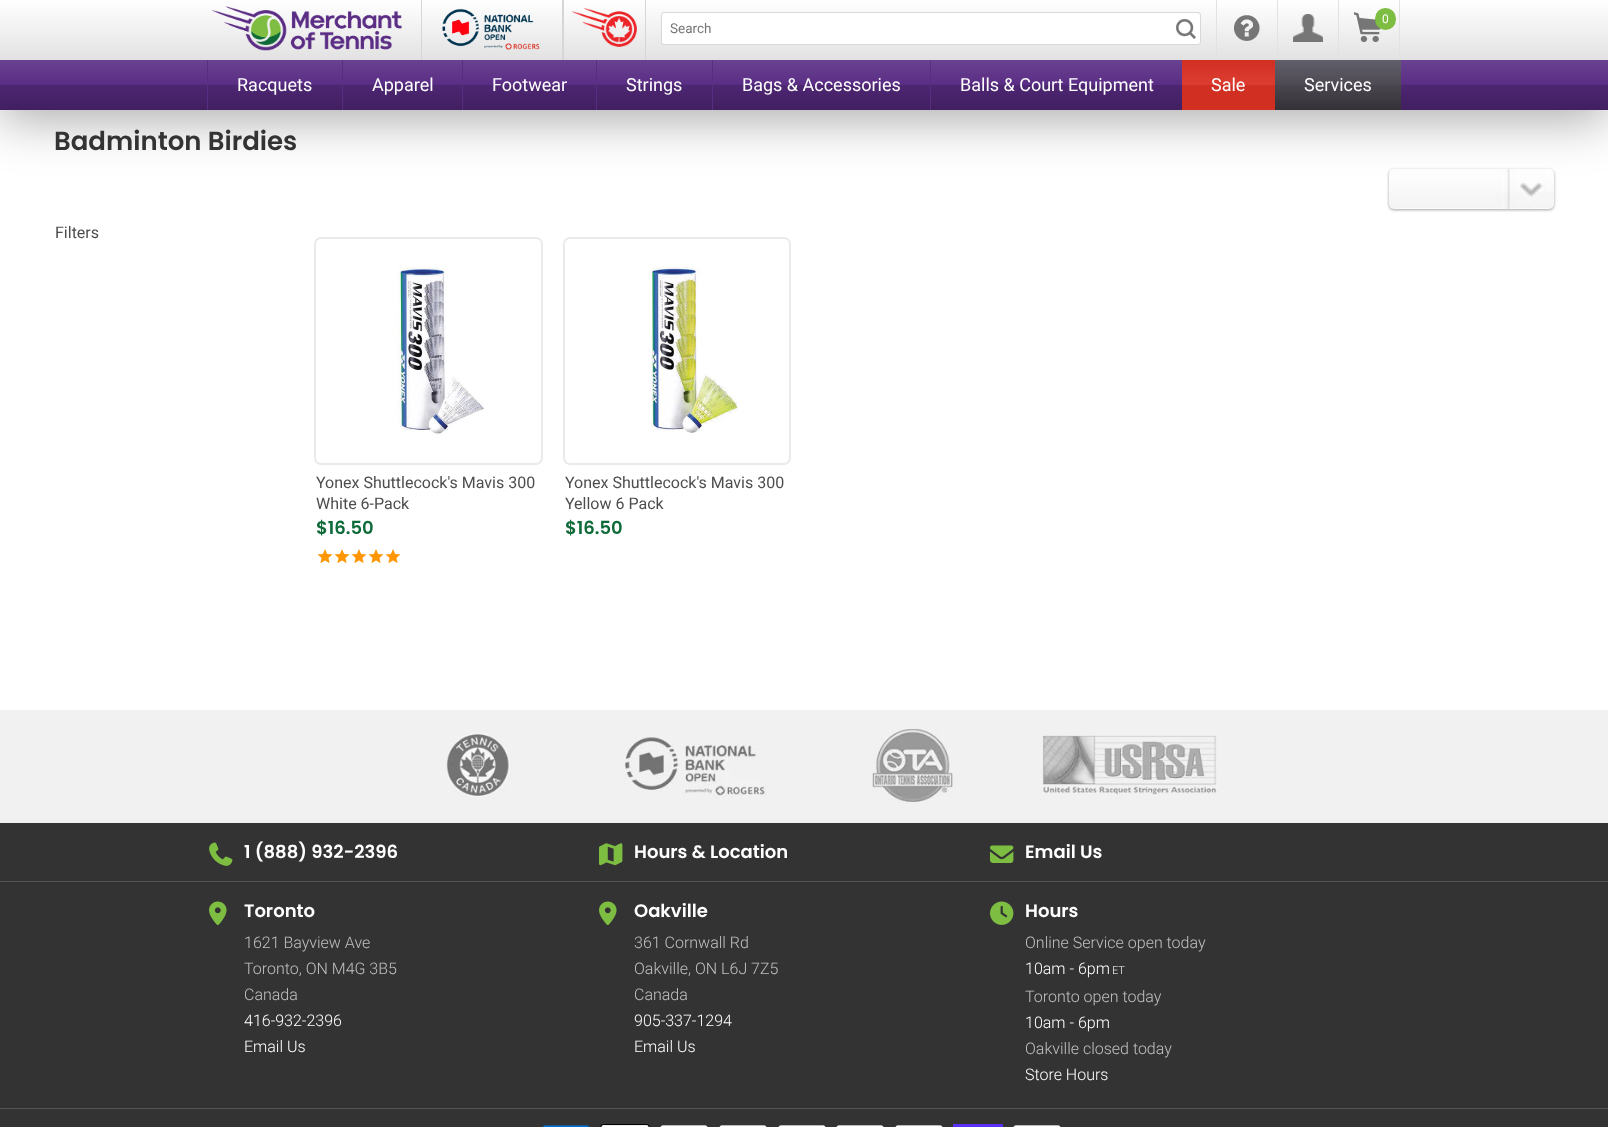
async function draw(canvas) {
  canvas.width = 1608
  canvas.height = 1127
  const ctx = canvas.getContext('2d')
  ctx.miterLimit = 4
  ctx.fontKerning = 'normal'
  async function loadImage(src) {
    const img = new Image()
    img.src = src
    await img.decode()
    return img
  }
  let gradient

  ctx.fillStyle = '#fff'
  ctx.fillRect(0, 0, 1608, 1127)
  ctx.fillStyle = '#0000005c'
  ctx.filter = 'blur(1.5px)'
  ctx.beginPath()
  ctx.roundRect(1389, 170, 165, 40, 5)
  ctx.fill()
  ctx.filter = 'none'
  ctx.drawImage(await loadImage('image7.png'), 1389, 169, 165, 40)
  ctx.fillStyle = '#00000054'
  ctx.filter = 'blur(25px)'
  ctx.beginPath()
  ctx.rect(0, 10, 1608, 110)
  ctx.fill()
  ctx.filter = 'none'
  gradient = ctx.createLinearGradient(804, 0, 804, 60)
  gradient.addColorStop(0, '#1e5799')
  gradient.addColorStop(0, '#fff')
  gradient.addColorStop(1, '#e2e2e2')
  ctx.fillStyle = gradient
  ctx.fillRect(0, 0, 1608, 60)
  ctx.drawImage(await loadImage('image0.png'), 212, 6, 190, 45)
  ctx.fillStyle = '#d6d6d6'
  ctx.fillRect(562, 0, 2, 60)
  ctx.fillRect(421, 0, 1, 60)
  ctx.drawImage(await loadImage('image1.png'), 442, 8, 99, 42)
  ctx.fillRect(645, 0, 1, 60)
  ctx.drawImage(await loadImage('image2.png'), 572, 8, 65, 39)
  ctx.fillStyle = '#e2e2e2'
  ctx.fillRect(1277, 0, 1, 60)
  ctx.drawImage(await loadImage('image3.png'), 1234, 15, 26, 26)
  ctx.fillRect(1338, 0, 1, 60)
  ctx.drawImage(await loadImage('image4.png'), 1293, 14, 30, 28)
  ctx.fillRect(1399, 0, 1, 60)
  ctx.drawImage(await loadImage('image5.png'), 1354, 12, 27, 30)
  ctx.fillStyle = '#7dbd42'
  ctx.beginPath()
  ctx.roundRect(1375, 8, 21, 22, 10.5)
  ctx.fill()
  ctx.font = '12px Roboto'
  ctx.fillStyle = '#fff'
  ctx.fillText('0', 1382, 23)
  ctx.fillStyle = '#e2e2e2'
  ctx.fillRect(1216, 0, 1, 60)
  ctx.fillStyle = '#fff'
  ctx.beginPath()
  ctx.roundRect(661.5, 12.5, 539, 32, 2.5)
  ctx.fill()
  ctx.strokeStyle = '#d8d8d8'
  ctx.stroke()
  ctx.font = '13.5px Roboto'
  ctx.fillStyle = '#757575'
  ctx.fillText('Search', 670, 33)
  ctx.drawImage(await loadImage('image6.png'), 1176, 19, 20, 20)
  gradient = ctx.createLinearGradient(804, 60, 804, 110)
  gradient.addColorStop(0, '#694291')
  gradient.addColorStop(0.5, '#5a2d84')
  gradient.addColorStop(0.51, '#4d2672')
  gradient.addColorStop(1, '#411f60')
  ctx.fillStyle = gradient
  ctx.fillRect(0, 60, 1608, 50)
  ctx.fillStyle = '#5a2d84'
  ctx.fillRect(207, 60, 1, 50)
  ctx.font = '18px Roboto'
  ctx.fillStyle = '#fff'
  ctx.fillText('Racquets', 237, 91)
  ctx.fillStyle = '#5a2d84'
  ctx.fillRect(342, 60, 1, 50)
  ctx.fillStyle = '#fff'
  ctx.fillText('Apparel', 372, 91)
  ctx.fillStyle = '#5a2d84'
  ctx.fillRect(462, 60, 1, 50)
  ctx.fillStyle = '#fff'
  ctx.fillText('Footwear', 492, 91)
  ctx.fillStyle = '#5a2d84'
  ctx.fillRect(596, 60, 1, 50)
  ctx.fillStyle = '#fff'
  ctx.fillText('Strings', 626, 91)
  ctx.fillStyle = '#5a2d84'
  ctx.fillRect(712, 60, 1, 50)
  ctx.fillStyle = '#fff'
  ctx.fillText('Bags & Accessories', 742, 91)
  ctx.fillStyle = '#5a2d84'
  ctx.fillRect(930, 60, 1, 50)
  ctx.fillStyle = '#fff'
  ctx.fillText('Balls & Court Equipment', 960, 91)
  gradient = ctx.createLinearGradient(1229, 60, 1229, 110)
  gradient.addColorStop(0, '#d22f23')
  gradient.addColorStop(0.5, '#dd3d31')
  gradient.addColorStop(0.51, '#d22f23')
  gradient.addColorStop(1, '#d22f23')
  ctx.fillStyle = gradient
  ctx.fillRect(1182, 60, 93, 50)
  ctx.fillStyle = '#fff'
  ctx.fillText('Sale', 1211, 91)
  gradient = ctx.createLinearGradient(1338, 60, 1338, 110)
  gradient.addColorStop(0, '#615f6a')
  gradient.addColorStop(0.5, '#4d4a53')
  gradient.addColorStop(0.51, '#49464f')
  gradient.addColorStop(1, '#343138')
  ctx.fillStyle = gradient
  ctx.fillRect(1275, 60, 126, 50)
  ctx.fillStyle = '#fff'
  ctx.fillText('Services', 1304, 91)
  ctx.font = '600 26px Poppins'
  ctx.fillStyle = '#333'
  ctx.fillText('Badminton Birdies', 54, 150)
  ctx.font = '16px Roboto'
  ctx.fillStyle = '#4d4d4d'
  ctx.fillText('Filters', 55, 238)
  ctx.drawImage(await loadImage('image8.png'), 397, 266, 87, 169)
  ctx.beginPath()
  ctx.roundRect(315, 238, 227, 226, 6)
  ctx.strokeStyle = '#eaeaea'
  ctx.lineWidth = 2
  ctx.stroke()
  ctx.fillText('Yonex Shuttlecock\'s Mavis 300', 316, 488)
  ctx.fillText('White 6-Pack', 316, 509)
  ctx.font = '600 18px Poppins'
  ctx.fillStyle = '#0e6b39'
  ctx.fillText('$16.50', 316, 534)
  ctx.drawImage(await loadImage('image9.png'), 317, 549, 16, 15)
  ctx.drawImage(await loadImage('image9.png'), 334, 549, 16, 15)
  ctx.drawImage(await loadImage('image9.png'), 351, 549, 16, 15)
  ctx.drawImage(await loadImage('image9.png'), 368, 549, 16, 15)
  ctx.drawImage(await loadImage('image9.png'), 385, 549, 16, 15)
  ctx.drawImage(await loadImage('image10.png'), 650, 266, 88, 167)
  ctx.beginPath()
  ctx.roundRect(564, 238, 226, 226, 6)
  ctx.stroke()
  ctx.font = '16px Roboto'
  ctx.fillStyle = '#4d4d4d'
  ctx.fillText('Yonex Shuttlecock\'s Mavis 300', 565, 488)
  ctx.fillText('Yellow 6 Pack', 565, 509)
  ctx.font = '600 18px Poppins'
  ctx.fillStyle = '#0e6b39'
  ctx.fillText('$16.50', 565, 534)
  ctx.fillStyle = '#f1f1f1'
  ctx.fillRect(0, 710, 1608, 113)
  ctx.drawImage(await loadImage('image11.png'), 446, 733, 64, 65)
  ctx.drawImage(await loadImage('image12.png'), 622, 737, 144, 61)
  ctx.drawImage(await loadImage('image13.png'), 872, 727, 83, 76)
  ctx.drawImage(await loadImage('image14.png'), 1042, 734, 175, 65)
  ctx.fillStyle = '#333'
  ctx.fillRect(0, 823, 1608, 304)
  ctx.fillStyle = '#545454'
  ctx.fillRect(0, 881, 1608, 1)
  ctx.drawImage(await loadImage('image15.png'), 209, 842, 24, 24)
  ctx.fillStyle = '#fff'
  ctx.fillText('1 (888) 932-2396', 244, 858)
  ctx.drawImage(await loadImage('image16.png'), 599, 843, 24, 23)
  ctx.fillText('Hours & Location', 634, 858)
  ctx.drawImage(await loadImage('image17.png'), 990, 845, 24, 18)
  ctx.fillText('Email Us', 1025, 858)
  ctx.fillStyle = '#545454'
  ctx.fillRect(0, 1108, 1608, 1)
  ctx.drawImage(await loadImage('image18.png'), 209, 901, 18, 24)
  ctx.fillStyle = '#fff'
  ctx.fillText('Toronto', 244, 917)
  ctx.font = '300 16px Roboto'
  ctx.fillStyle = '#c0c0c0'
  ctx.fillText('1621 Bayview Ave', 244, 948)
  ctx.fillText('Toronto, ON M4G 3B5', 244, 974)
  ctx.fillText('Canada', 244, 1000)
  ctx.fillStyle = '#fff'
  ctx.fillText('416-932-2396', 244, 1026)
  ctx.fillText('Email Us', 244, 1052)
  ctx.drawImage(await loadImage('image18.png'), 599, 901, 18, 24)
  ctx.font = '600 18px Poppins'
  ctx.fillText('Oakville', 634, 917)
  ctx.font = '300 16px Roboto'
  ctx.fillStyle = '#c0c0c0'
  ctx.fillText('361 Cornwall Rd', 634, 948)
  ctx.fillText('Oakville, ON L6J 7Z5', 634, 974)
  ctx.fillText('Canada', 634, 1000)
  ctx.fillStyle = '#fff'
  ctx.fillText('905-337-1294', 634, 1026)
  ctx.fillText('Email Us', 634, 1052)
  ctx.drawImage(await loadImage('image19.png'), 990, 901, 24, 24)
  ctx.font = '600 18px Poppins'
  ctx.fillText('Hours', 1025, 917)
  ctx.font = '300 16px Roboto'
  ctx.fillStyle = '#c0c0c0'
  ctx.fillText('Online Service open today', 1025, 948)
  ctx.fillStyle = '#fff'
  ctx.fillText('10am - 6pm', 1025, 974)
  ctx.font = '300 11px Roboto'
  ctx.fillText('ET', 1112, 974)
  ctx.font = '300 16px Roboto'
  ctx.fillStyle = '#c0c0c0'
  ctx.fillText('Toronto open today', 1025, 1002)
  ctx.fillStyle = '#fff'
  ctx.fillText('10am - 6pm', 1025, 1028)
  ctx.fillStyle = '#c0c0c0'
  ctx.fillText('Oakville closed today', 1025, 1054)
  ctx.fillStyle = '#fff'
  ctx.fillText('Store Hours', 1025, 1080)
  ctx.drawImage(await loadImage('image20.png'), 542, 1125, 48, 2)
  ctx.drawImage(await loadImage('image21.png'), 600, 1124, 50, 3)
  ctx.drawImage(await loadImage('image22.png'), 660, 1125, 48, 2)
  ctx.drawImage(await loadImage('image22.png'), 719, 1125, 48, 2)
  ctx.drawImage(await loadImage('image22.png'), 778, 1125, 48, 2)
  ctx.drawImage(await loadImage('image22.png'), 836, 1125, 48, 2)
  ctx.drawImage(await loadImage('image22.png'), 895, 1125, 48, 2)
  ctx.fillStyle = '#5a31f4'
  ctx.fillRect(953, 1124, 50, 3)
  ctx.drawImage(await loadImage('image22.png'), 1013, 1125, 48, 2)
}

draw(document.querySelector('canvas'))
